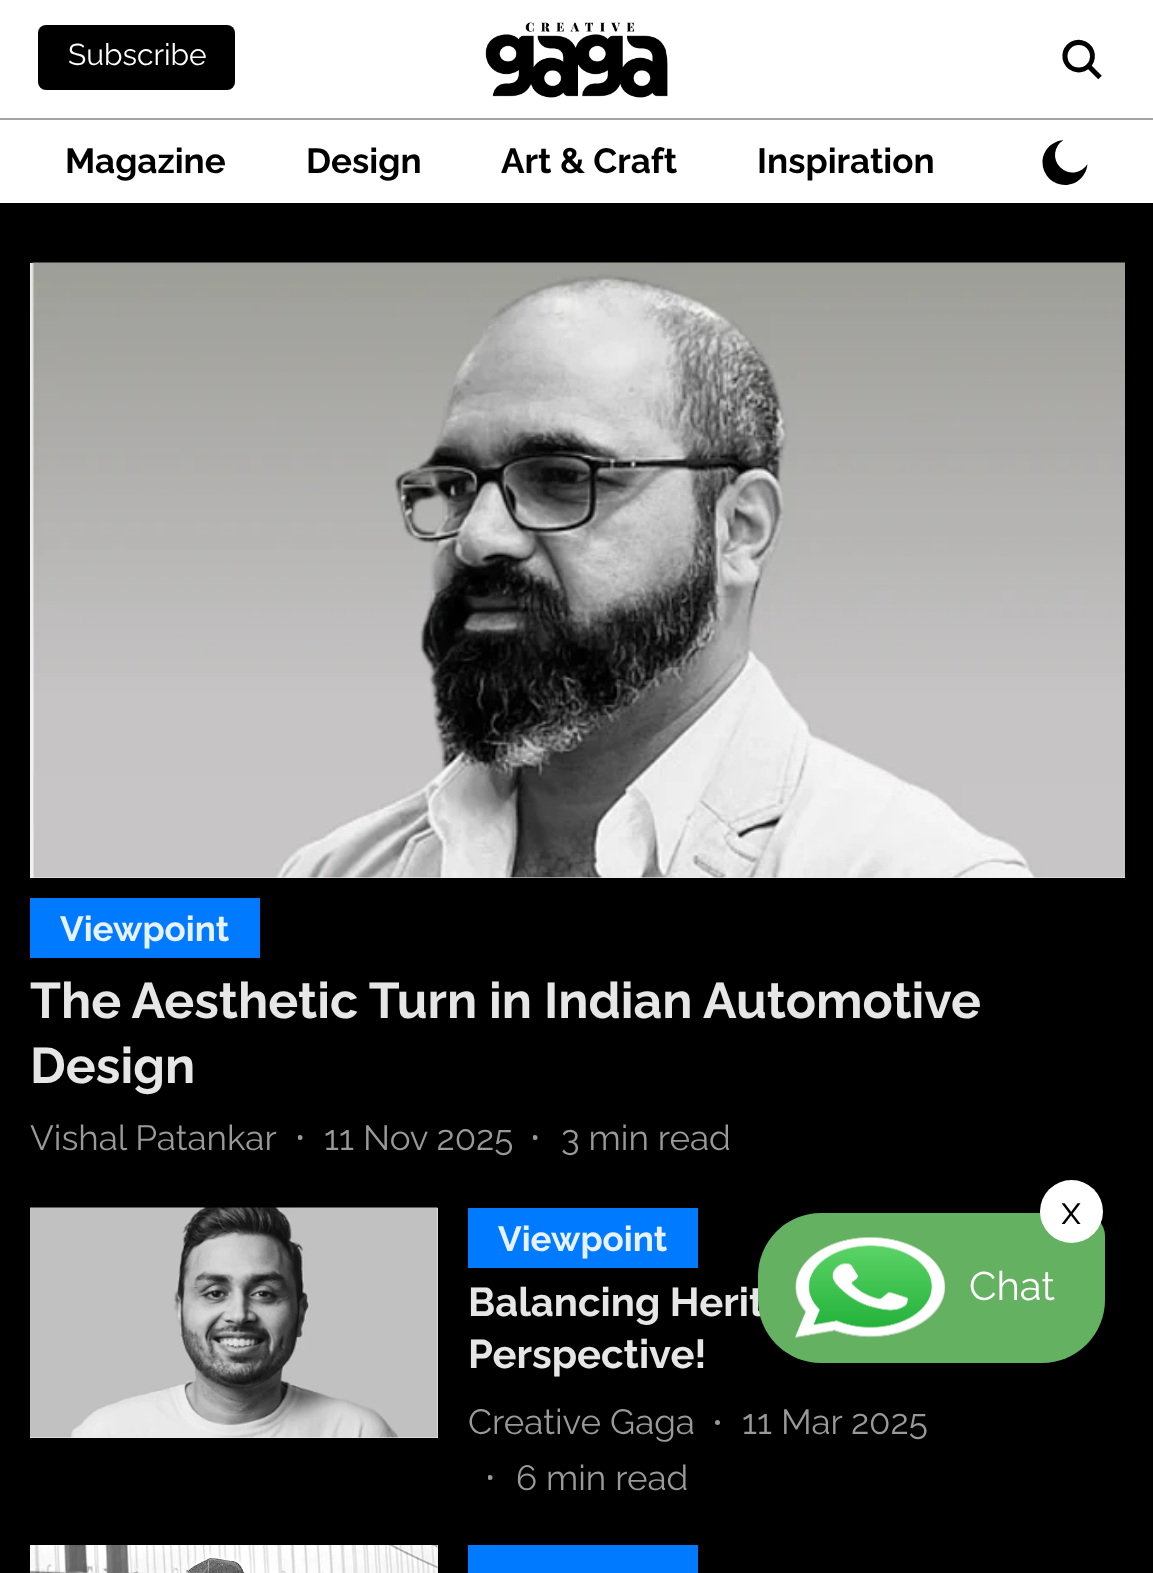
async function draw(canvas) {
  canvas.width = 1153
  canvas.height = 1573
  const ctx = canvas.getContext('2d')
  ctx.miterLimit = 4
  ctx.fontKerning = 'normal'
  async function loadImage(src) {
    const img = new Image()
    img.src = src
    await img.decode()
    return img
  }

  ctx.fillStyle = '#fff'
  ctx.fillRect(0, 0, 1153, 1573)
  ctx.fillStyle = '#000'
  ctx.beginPath()
  ctx.roundRect(38, 25, 197, 65, 8)
  ctx.fill()
  ctx.font = '100 30px "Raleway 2"'
  ctx.fillStyle = '#fff'
  ctx.fillText('Subscribe', 68, 65)
  ctx.fillStyle = '#a4a4a4'
  ctx.fillRect(0, 118, 1153, 2)
  ctx.drawImage(await loadImage('image0.png'), 485, 22, 183, 76)
  ctx.drawImage(await loadImage('image1.png'), 1062, 39, 40, 41)
  ctx.font = '100 35px Raleway'
  ctx.fillStyle = '#000'
  ctx.fillText('Magazine', 65, 173)
  ctx.fillText('Design', 306, 173)
  ctx.fillText('Art & Craft', 501, 173)
  ctx.fillText('Inspiration', 757, 173)
  ctx.drawImage(await loadImage('image2.png'), 1042, 140, 46, 45)
  ctx.fillRect(0, 203, 1153, 1370)
  ctx.fillStyle = '#f0f0f0'
  ctx.fillRect(30, 263, 1095, 615)
  ctx.drawImage(await loadImage('image3.png'), 31, 262, 1094, 616)
  ctx.fillStyle = '#007aff'
  ctx.fillRect(30, 898, 230, 60)
  ctx.fillStyle = '#e6f2ff'
  ctx.fillText('Viewpoint', 60, 941)
  ctx.font = '100 50px Raleway'
  ctx.fillStyle = '#e6e6e6'
  ctx.fillText('The Aesthetic Turn in Indian Automotive', 30, 1018)
  ctx.fillText('Design', 30, 1083)
  ctx.font = '100 35px "Raleway 2"'
  ctx.fillStyle = '#999'
  ctx.fillText('Vishal Patankar', 30, 1150)
  ctx.save()
  ctx.beginPath()
  ctx.rect(298, 1135, 8, 8)
  ctx.clip()
  ctx.beginPath()
  ctx.arc(300, 1137.5, 2.5, 0, 2 * Math.PI)
  ctx.fill()
  ctx.restore()
  ctx.fillText('11 Nov 2025', 324, 1150)
  ctx.save()
  ctx.beginPath()
  ctx.rect(533, 1135, 8, 8)
  ctx.clip()
  ctx.beginPath()
  ctx.arc(535, 1137.5, 2.5, 0, 2 * Math.PI)
  ctx.fill()
  ctx.restore()
  ctx.fillText('3 min read', 561, 1150)
  ctx.fillStyle = '#f0f0f0'
  ctx.fillRect(30, 1208, 408, 230)
  ctx.drawImage(await loadImage('image4.png'), 30, 1207, 408, 231)
  ctx.fillStyle = '#007aff'
  ctx.fillRect(468, 1208, 230, 60)
  ctx.font = '100 35px Raleway'
  ctx.fillStyle = '#e6f2ff'
  ctx.fillText('Viewpoint', 498, 1251)
  ctx.font = '100 40px Raleway'
  ctx.fillStyle = '#e6e6e6'
  ctx.fillText('Balancing Herit', 468, 1316)
  ctx.fillText('Perspective!', 468, 1368)
  ctx.font = '100 35px "Raleway 2"'
  ctx.fillStyle = '#999'
  ctx.fillText('Creative Gaga', 468, 1434)
  ctx.beginPath()
  ctx.arc(717.5, 1422.5, 2.5, 0, 2 * Math.PI)
  ctx.fill()
  ctx.fillText('11 Mar 2025', 742, 1434)
  ctx.save()
  ctx.beginPath()
  ctx.rect(488, 1475, 8, 8)
  ctx.clip()
  ctx.beginPath()
  ctx.arc(490, 1477.5, 2.5, 0, 2 * Math.PI)
  ctx.fill()
  ctx.restore()
  ctx.fillText('6 min read', 516, 1490)
  ctx.fillStyle = '#f0f0f0'
  ctx.fillRect(437, 1545, 1, 28)
  ctx.drawImage(await loadImage('image5.png'), 30, 1545, 408, 28)
  ctx.fillStyle = '#007aff'
  ctx.fillRect(468, 1545, 230, 28)
  ctx.fillStyle = '#64b161'
  ctx.beginPath()
  ctx.roundRect(758, 1213, 347, 150, [63, 23, 63, 63])
  ctx.fill()
  ctx.fillStyle = '#fff'
  ctx.beginPath()
  ctx.arc(1071.5, 1211.5, 31.5, 0, 2 * Math.PI)
  ctx.fill()
  ctx.font = '100 40px "Raleway 2"'
  ctx.fillStyle = '#000'
  ctx.fillText('x', 1061, 1224)
  ctx.drawImage(await loadImage('image6.png'), 795, 1237, 150, 101)
  ctx.fillStyle = '#fff'
  ctx.fillText('Chat', 969, 1300)
}

draw(document.querySelector('canvas'))
